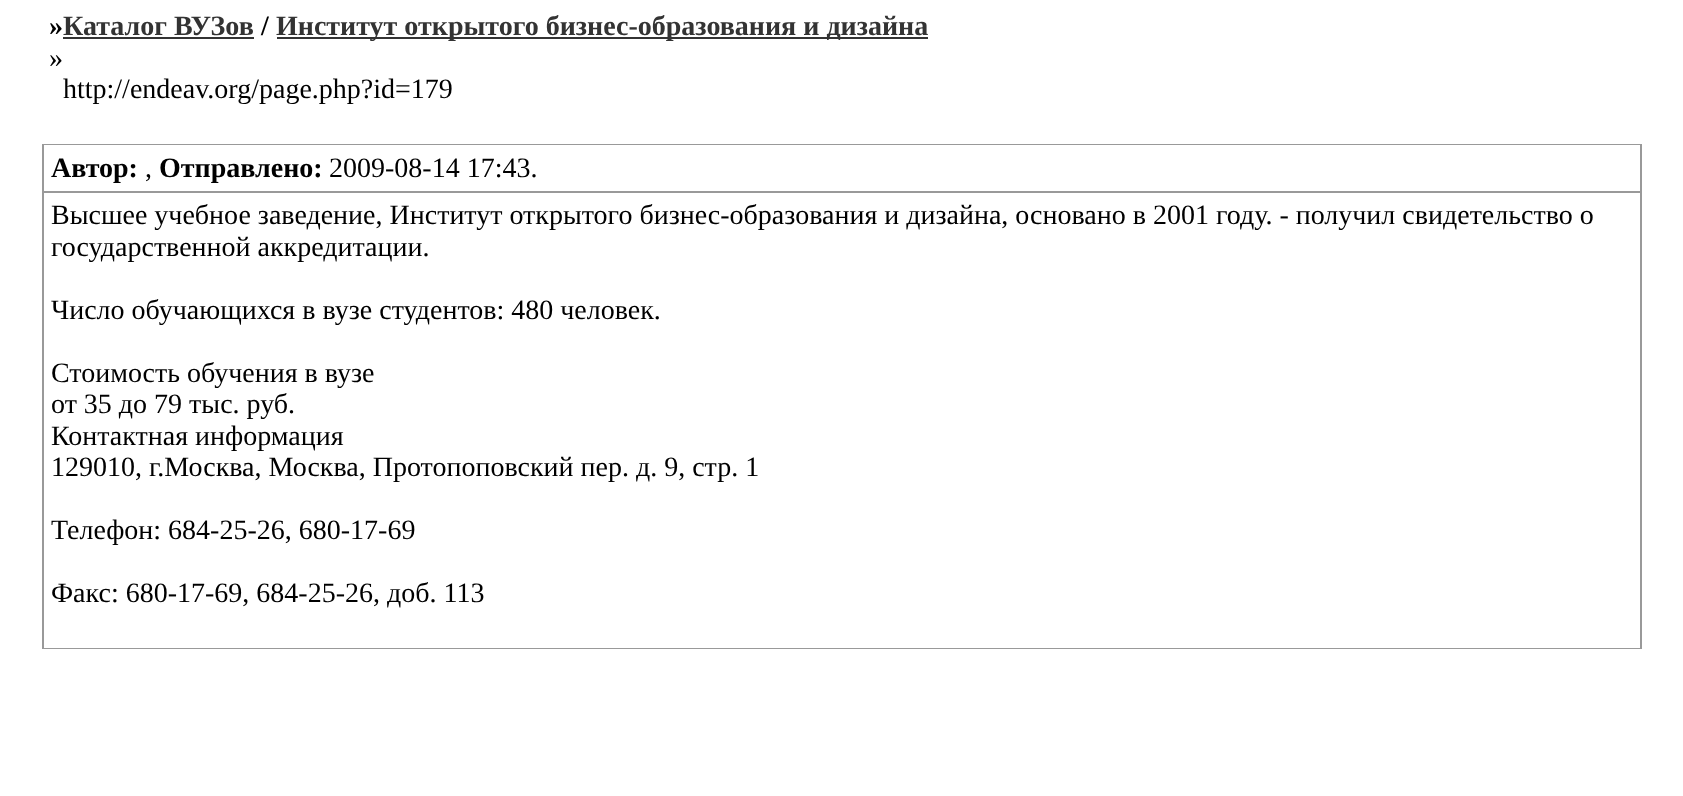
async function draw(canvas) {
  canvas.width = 1683
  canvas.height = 796
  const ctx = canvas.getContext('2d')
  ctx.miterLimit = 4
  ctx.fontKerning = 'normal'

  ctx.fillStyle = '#fff'
  ctx.fillRect(0, 0, 1683, 796)
  ctx.font = 'bold 28px Liberation Serif'
  ctx.fillStyle = '#000'
  ctx.fillText('»', 49, 35)
  ctx.fillStyle = '#333'
  ctx.fillRect(63, 37, 191, 2)
  ctx.fillText('Каталог ВУЗов', 63, 35)
  ctx.fillStyle = '#000'
  ctx.fillText('/', 261, 35)
  ctx.fillStyle = '#333'
  ctx.fillRect(277, 37, 651, 2)
  ctx.fillText('Институт открытого бизнес-образования и дизайна', 276, 35)
  ctx.font = '28px Liberation Serif'
  ctx.fillStyle = '#000'
  ctx.fillText('»', 49, 67)
  ctx.fillText('http://endeav.org/page.php?id=179', 63, 98)
  ctx.fillStyle = '#999'
  ctx.fillRect(42, 144, 1600, 505)
  ctx.fillStyle = '#fff'
  ctx.fillRect(44, 145, 1596, 46)
  ctx.font = 'bold 28px Liberation Serif'
  ctx.fillStyle = '#000'
  ctx.fillText('Автор:', 51, 177)
  ctx.font = '28px Liberation Serif'
  ctx.fillText(',', 145, 177)
  ctx.font = 'bold 28px Liberation Serif'
  ctx.fillText('Отправлено:', 159, 177)
  ctx.font = '28px Liberation Serif'
  ctx.fillText('2009-08-14 17:43.', 329, 177)
  ctx.fillStyle = '#fff'
  ctx.fillRect(44, 193, 1596, 455)
  ctx.fillStyle = '#000'
  ctx.fillText('Высшее учебное заведение, Институт открытого бизнес-образования и дизайна, основано в 2001 году. - получил свидетельство о', 51, 224)
  ctx.fillText('государственной аккредитации.', 51, 256)
  ctx.fillText('Число обучающихся в вузе студентов: 480 человек.', 51, 319)
  ctx.fillText('Стоимость обучения в вузе', 51, 382)
  ctx.fillText('от 35 до 79 тыс. руб.', 51, 413)
  ctx.fillText('Контактная информация', 51, 445)
  ctx.fillText('129010, г.Москва, Москва, Протопоповский пер. д. 9, стр. 1', 51, 476)
  ctx.fillText('Телефон: 684-25-26, 680-17-69', 51, 539)
  ctx.fillText('Факс: 680-17-69, 684-25-26, доб. 113', 51, 602)
}

draw(document.querySelector('canvas'))
